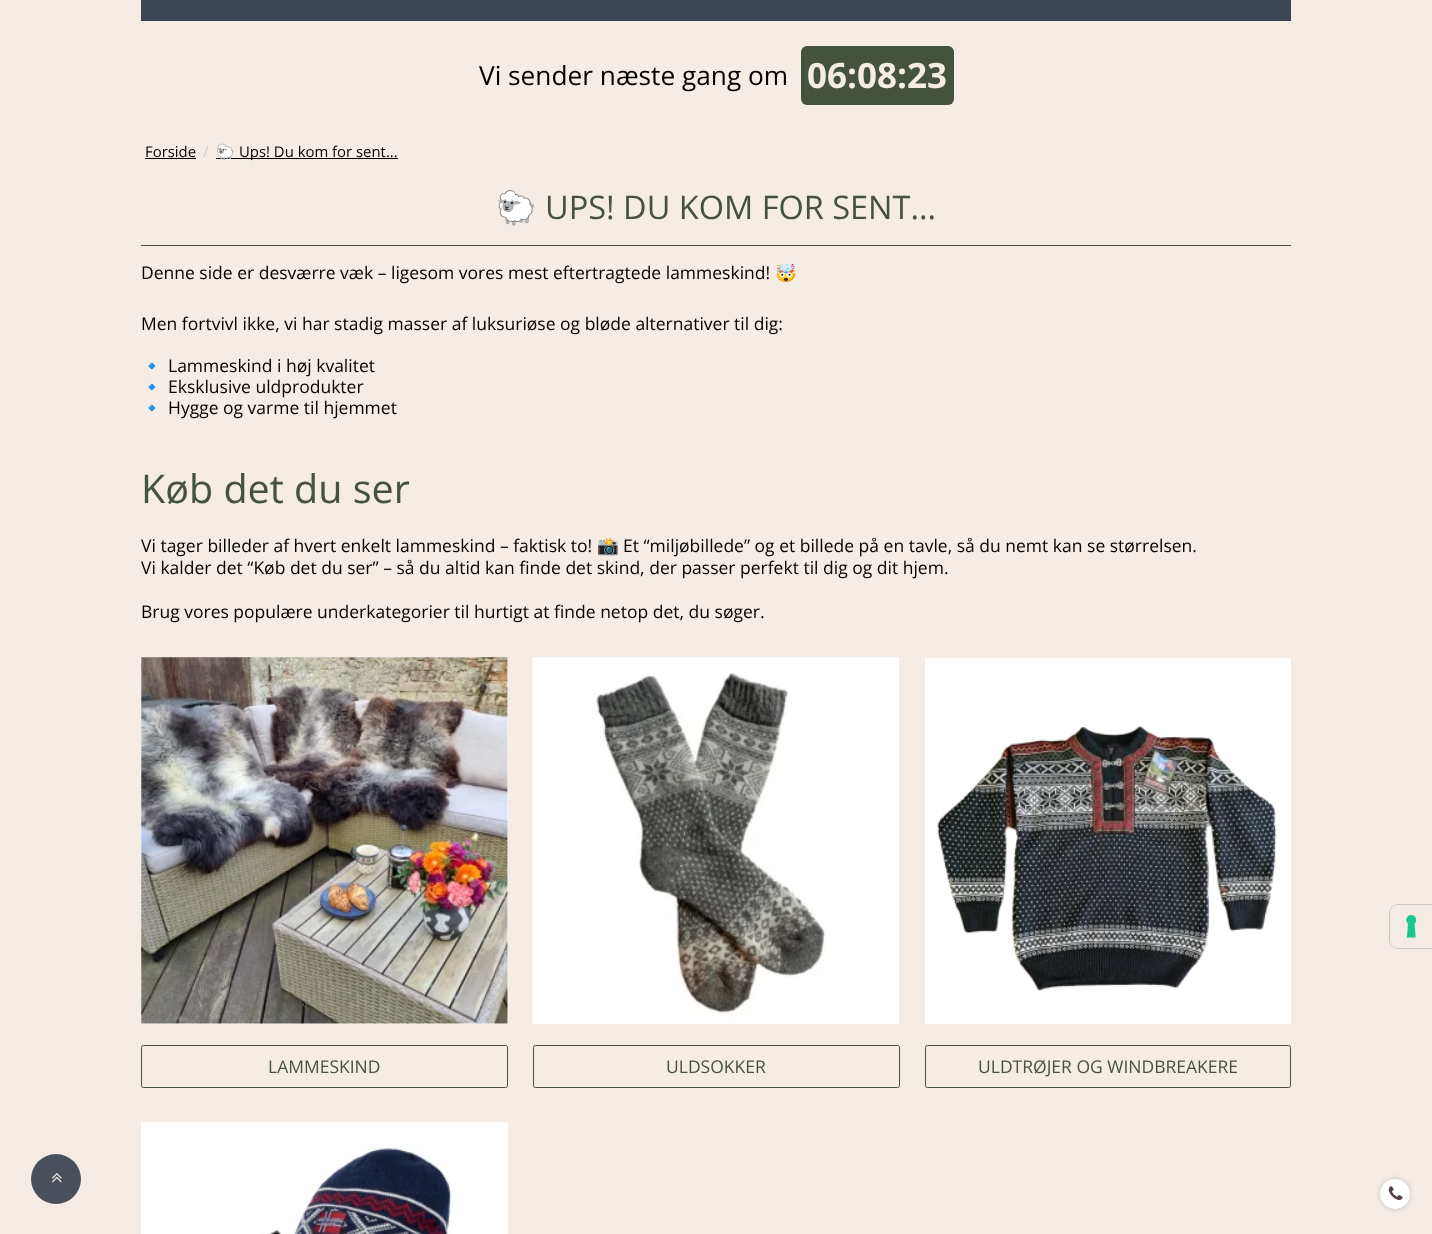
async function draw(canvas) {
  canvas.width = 1432
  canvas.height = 1234
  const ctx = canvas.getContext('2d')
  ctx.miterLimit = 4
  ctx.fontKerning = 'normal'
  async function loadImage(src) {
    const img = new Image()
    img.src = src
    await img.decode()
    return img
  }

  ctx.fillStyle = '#f5ece5'
  ctx.fillRect(0, 0, 1432, 1234)
  ctx.fillStyle = '#3e4552'
  ctx.fillRect(141, 0, 1150, 21)
  ctx.font = '26.25px Open Sans'
  ctx.fillStyle = '#000'
  ctx.fillText('Vi sender næste gang om', 479, 85)
  ctx.fillStyle = '#45523e'
  ctx.beginPath()
  ctx.roundRect(801, 46, 153, 59, 6)
  ctx.fill()
  ctx.font = 'bold 35px Open Sans'
  ctx.fillStyle = '#f5ece5'
  ctx.fillText('06:08:23', 807, 88)
  ctx.font = '14.9px Open Sans'
  ctx.fillStyle = '#000'
  ctx.fillText('Forside', 145, 157)
  ctx.fillRect(145, 158, 51, 1)
  ctx.fillStyle = '#ccc'
  ctx.fillText('/', 203, 157)
  ctx.fillStyle = '#000'
  ctx.fillRect(216, 158, 182, 1)
  ctx.font = '14.9px Noto Color Emoji'
  ctx.fillText('🐑', 216, 157)
  ctx.font = '14.9px Open Sans'
  ctx.fillText('Ups! Du kom for sent...', 239, 157)
  ctx.fillStyle = '#f5ece5'
  ctx.fillRect(250, 160, 2, 1)
  ctx.fillStyle = '#45523e'
  ctx.fillRect(141, 245, 1150, 1)
  ctx.font = '32.5px Noto Color Emoji'
  ctx.fillText('🐑', 496, 219)
  ctx.font = '32.5px Open Sans'
  ctx.fillText('UPS! DU KOM FOR SENT...', 545, 219)
  ctx.font = '17.5px Open Sans'
  ctx.fillStyle = '#000'
  ctx.fillText('Denne side er desværre væk – ligesom vores mest eftertragtede lammeskind!', 141, 279)
  ctx.font = '17.5px Noto Color Emoji'
  ctx.fillText('🤯', 775, 279)
  ctx.font = '17.5px Open Sans'
  ctx.fillText('Men fortvivl ikke, vi har stadig masser af luksuriøse og bløde alternativer til dig:', 141, 330)
  ctx.font = '17.5px Noto Color Emoji'
  ctx.fillText('🔹', 141, 372)
  ctx.font = '17.5px Open Sans'
  ctx.fillText('Lammeskind i høj kvalitet', 168, 372)
  ctx.font = '17.5px Noto Color Emoji'
  ctx.fillText('🔹', 141, 393)
  ctx.font = '17.5px Open Sans'
  ctx.fillText('Eksklusive uldprodukter', 168, 393)
  ctx.font = '17.5px Noto Color Emoji'
  ctx.fillText('🔹', 141, 414)
  ctx.font = '17.5px Open Sans'
  ctx.fillText('Hygge og varme til hjemmet', 168, 414)
  ctx.font = '39.5px Open Sans'
  ctx.fillStyle = '#45523e'
  ctx.fillText('Køb det du ser', 141, 503)
  ctx.font = '17.5px Open Sans'
  ctx.fillStyle = '#000'
  ctx.fillText('Vi tager billeder af hvert enkelt lammeskind – faktisk to!', 141, 552)
  ctx.font = '17.5px Noto Color Emoji'
  ctx.fillText('📸', 597, 552)
  ctx.font = '17.5px Open Sans'
  ctx.fillText('Et “miljøbillede” og et billede på en tavle, så du nemt kan se størrelsen.', 623, 552)
  ctx.fillText('Vi kalder det “Køb det du ser” – så du altid kan finde det skind, der passer perfekt til dig og dit hjem.', 141, 574)
  ctx.fillText('Brug vores populære underkategorier til hurtigt at finde netop det, du søger.', 141, 618)
  ctx.fillStyle = '#fff'
  ctx.fillRect(141, 658, 367, 366)
  ctx.drawImage(await loadImage('image0.png'), 141, 657, 367, 367)
  ctx.beginPath()
  ctx.roundRect(141.5, 1045.5, 366, 42, 2)
  ctx.strokeStyle = '#45523e'
  ctx.stroke()
  ctx.fillStyle = '#45523e'
  ctx.fillText('LAMMESKIND', 268, 1073)
  ctx.fillStyle = '#fff'
  ctx.fillRect(533, 658, 366, 366)
  ctx.drawImage(await loadImage('image1.png'), 532, 657, 367, 367)
  ctx.beginPath()
  ctx.roundRect(533.5, 1045.5, 366, 42, 2)
  ctx.stroke()
  ctx.fillStyle = '#45523e'
  ctx.fillText('ULDSOKKER', 666, 1073)
  ctx.fillStyle = '#fff'
  ctx.fillRect(925, 658, 366, 366)
  ctx.drawImage(await loadImage('image2.png'), 937, 726, 340, 266)
  ctx.beginPath()
  ctx.roundRect(925.5, 1045.5, 365, 42, 2)
  ctx.stroke()
  ctx.fillStyle = '#45523e'
  ctx.fillText('ULDTRØJER OG WINDBREAKERE', 978, 1073)
  ctx.fillStyle = '#fff'
  ctx.fillRect(141, 1123, 367, 111)
  ctx.drawImage(await loadImage('image3.png'), 141, 1122, 367, 112)
  ctx.beginPath()
  ctx.moveTo(1398, 904.5)
  ctx.lineTo(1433.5, 904.5)
  ctx.lineTo(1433.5, 948.5)
  ctx.lineTo(1398, 948.5)
  ctx.bezierCurveTo(1393.5, 948.5, 1389.5, 944.5, 1389.5, 940)
  ctx.lineTo(1389.5, 913)
  ctx.bezierCurveTo(1389.5, 908.5, 1393.5, 904.5, 1398, 904.5)
  ctx.closePath()
  ctx.strokeStyle = '#d0c9c3'
  ctx.stroke()
  ctx.fillStyle = '#f5ece5'
  ctx.beginPath()
  ctx.moveTo(1398, 905)
  ctx.lineTo(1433, 905)
  ctx.lineTo(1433, 948)
  ctx.lineTo(1398, 948)
  ctx.bezierCurveTo(1393.5, 948, 1390, 944.5, 1390, 940)
  ctx.lineTo(1390, 913)
  ctx.bezierCurveTo(1390, 908.5, 1393.5, 905, 1398, 905)
  ctx.closePath()
  ctx.fill()
  ctx.drawImage(await loadImage('image4.png'), 1406, 915, 11, 23)
  ctx.fillStyle = '#494f5b'
  ctx.beginPath()
  ctx.arc(56, 1179, 25, 0, 2 * Math.PI)
  ctx.fill()
  ctx.drawImage(await loadImage('image5.png'), 52, 1173, 10, 10)
  ctx.fillStyle = '#00000033'
  ctx.filter = 'blur(2.5px)'
  ctx.beginPath()
  ctx.roundRect(1380, 1179, 30, 30, 15)
  ctx.fill()
  ctx.filter = 'none'
  ctx.fillStyle = '#fff'
  ctx.beginPath()
  ctx.arc(1395, 1194, 15, 0, 2 * Math.PI)
  ctx.fill()
  ctx.drawImage(await loadImage('image6.png'), 1388, 1186, 15, 14)
}

draw(document.querySelector('canvas'))
